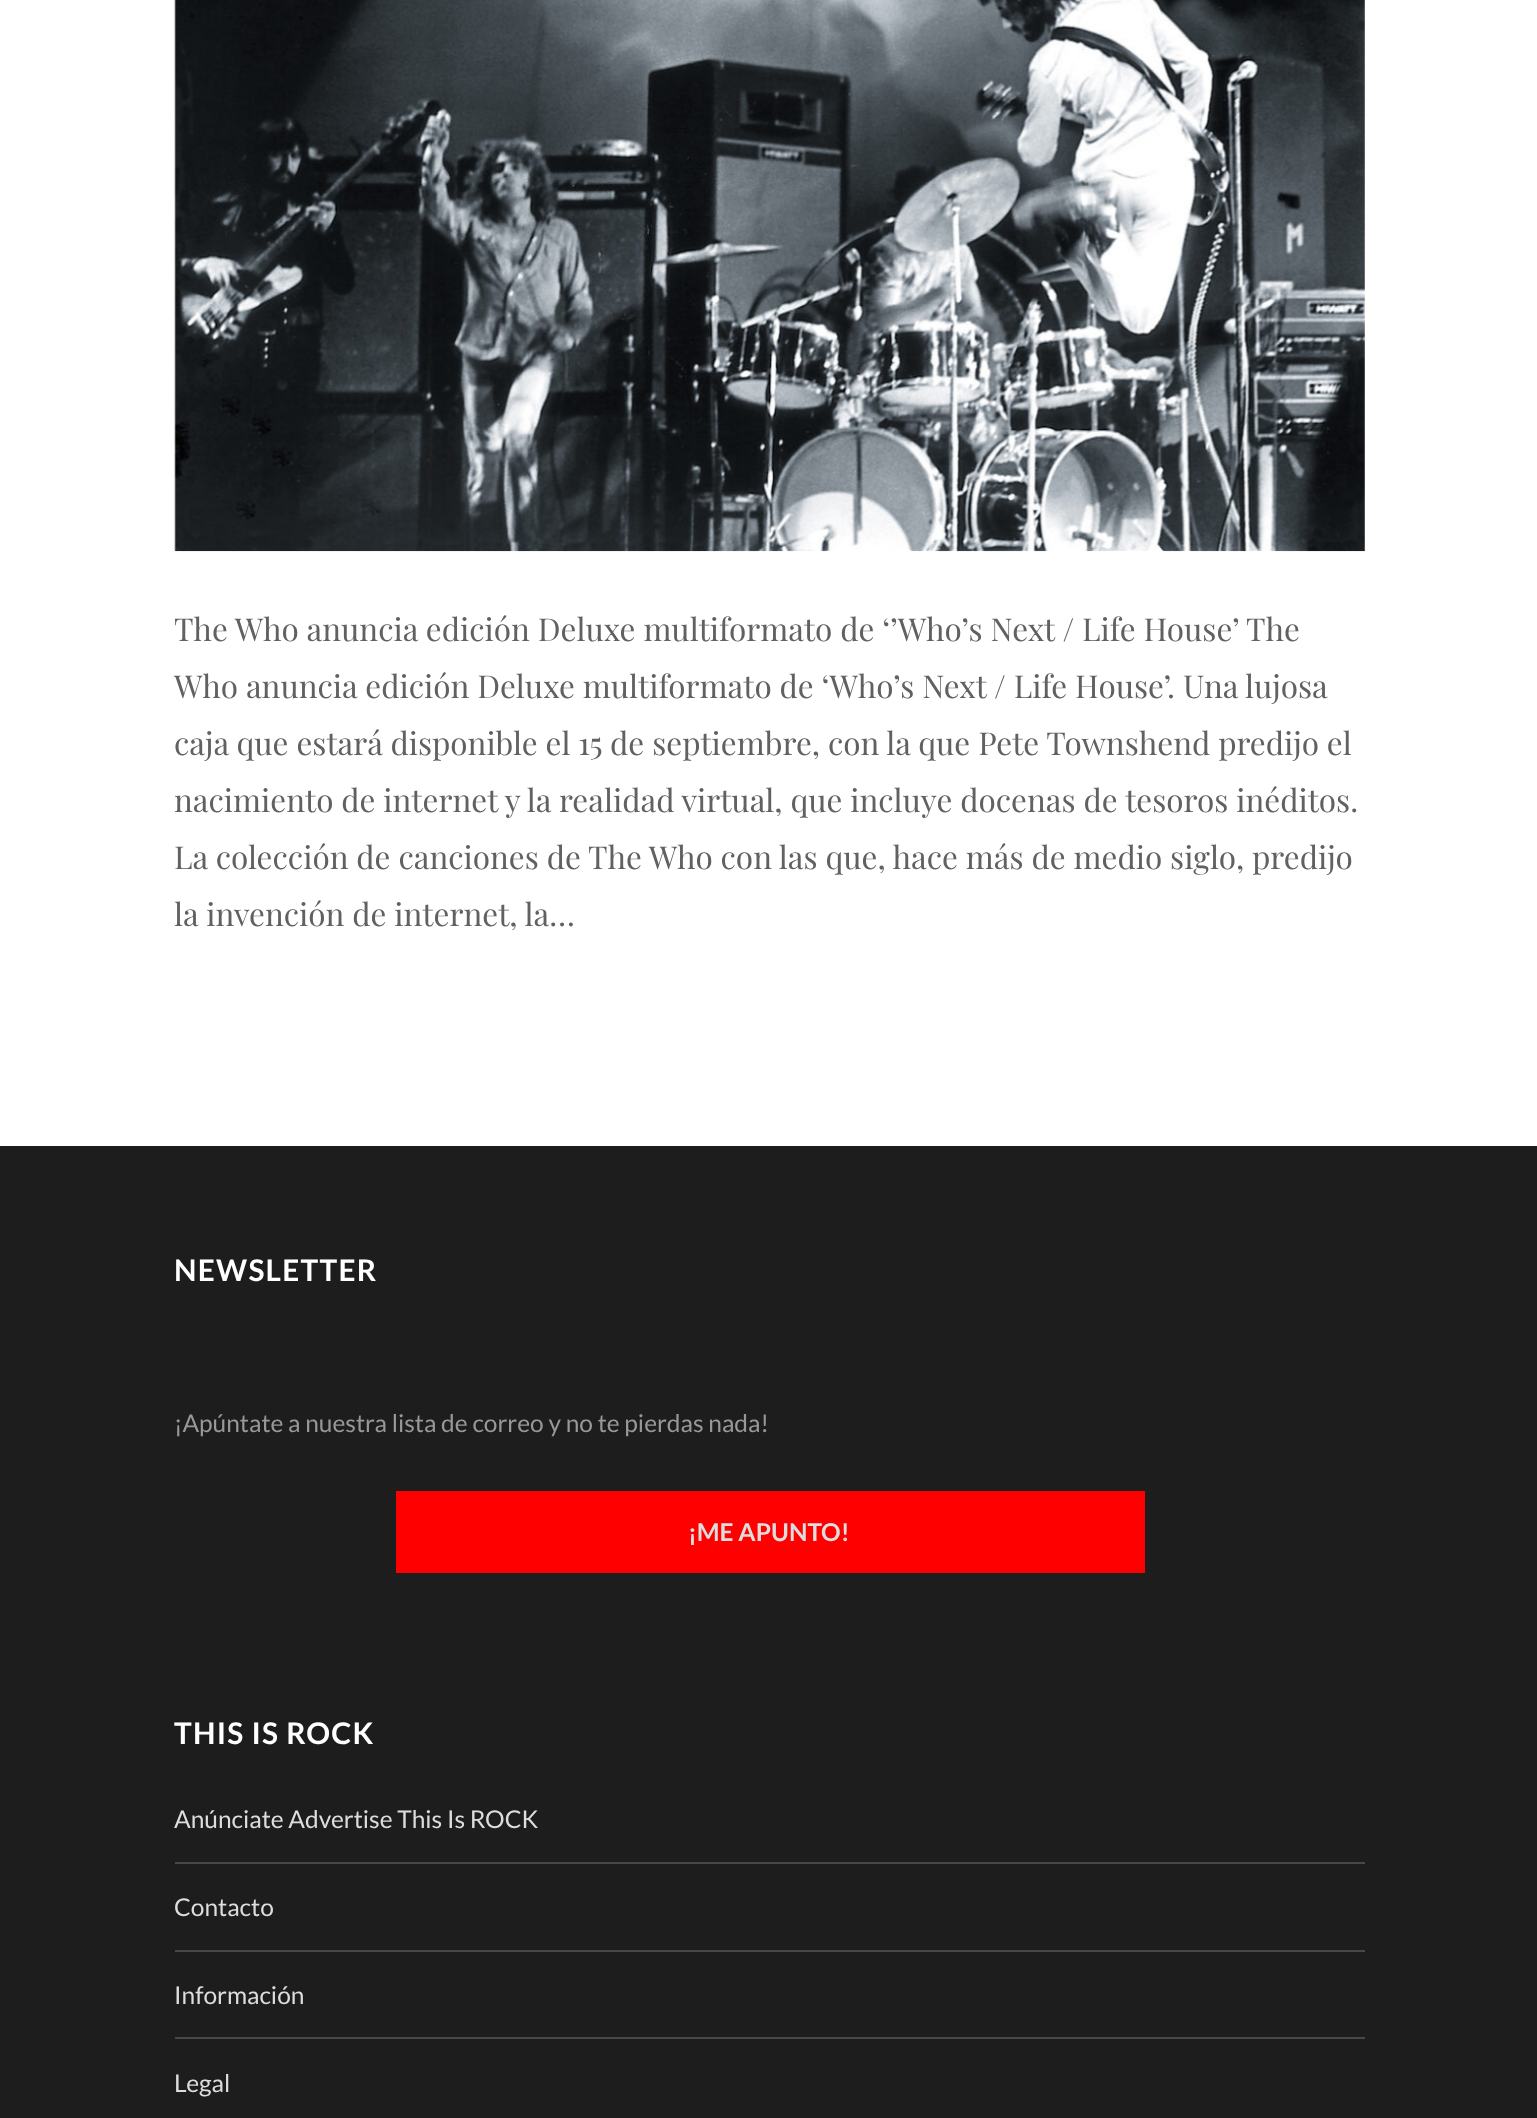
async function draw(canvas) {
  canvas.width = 1537
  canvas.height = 2118
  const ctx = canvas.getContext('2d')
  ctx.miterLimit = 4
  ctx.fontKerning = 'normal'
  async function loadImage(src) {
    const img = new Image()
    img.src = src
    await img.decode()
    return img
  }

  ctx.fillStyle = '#fff'
  ctx.fillRect(0, 0, 1537, 2118)
  ctx.drawImage(await loadImage('image0.png'), 174, 0, 1191, 552)
  ctx.font = '31.5px Playfair Display'
  ctx.fillStyle = '#616161'
  ctx.fillText('The Who anuncia edición Deluxe multiformato de ‘’Who’s Next / Life House’ The', 174, 641)
  ctx.fillText('Who anuncia edición Deluxe multiformato de ‘Who’s Next / Life House’. Una lujosa', 174, 698)
  ctx.fillText('caja que estará disponible el 15 de septiembre, con la que Pete Townshend predijo el', 174, 755)
  ctx.fillText('nacimiento de internet y la realidad virtual, que incluye docenas de tesoros inéditos.', 174, 812)
  ctx.fillText('La colección de canciones de The Who con las que, hace más de medio siglo, predijo', 174, 869)
  ctx.fillText('la invención de internet, la…', 174, 926)
  ctx.fillStyle = '#1d1d1d'
  ctx.fillRect(0, 1146, 1537, 972)
  ctx.letterSpacing = '1.25px'
  ctx.font = 'bold 29.75px Lato'
  ctx.fillStyle = '#fff'
  ctx.fillText('NEWSLETTER', 174, 1281)
  ctx.letterSpacing = '0px'
  ctx.font = '24.5px Lato'
  ctx.fillStyle = '#989898'
  ctx.fillText('¡Apúntate a nuestra lista de correo y no te pierdas nada!', 174, 1432)
  ctx.fillStyle = '#f00'
  ctx.fillRect(396, 1491, 749, 82)
  ctx.font = 'bold 24.5px Lato'
  ctx.fillStyle = '#ddd'
  ctx.fillText('¡ME APUNTO!', 688, 1541)
  ctx.letterSpacing = '1.25px'
  ctx.font = 'bold 29.75px Lato'
  ctx.fillStyle = '#fff'
  ctx.fillText('THIS IS ROCK', 174, 1744)
  ctx.fillStyle = '#484848'
  ctx.fillRect(175, 1862, 1190, 2)
  ctx.letterSpacing = '0px'
  ctx.font = '24.5px Lato'
  ctx.fillStyle = '#ddd'
  ctx.fillText('Anúnciate Advertise This Is ROCK', 174, 1828)
  ctx.fillStyle = '#484848'
  ctx.fillRect(175, 1950, 1190, 2)
  ctx.fillStyle = '#ddd'
  ctx.fillText('Contacto', 174, 1916)
  ctx.fillStyle = '#484848'
  ctx.fillRect(175, 2037, 1190, 2)
  ctx.fillStyle = '#ddd'
  ctx.fillText('Información', 174, 2004)
  ctx.fillText('Legal', 174, 2092)
}

draw(document.querySelector('canvas'))
